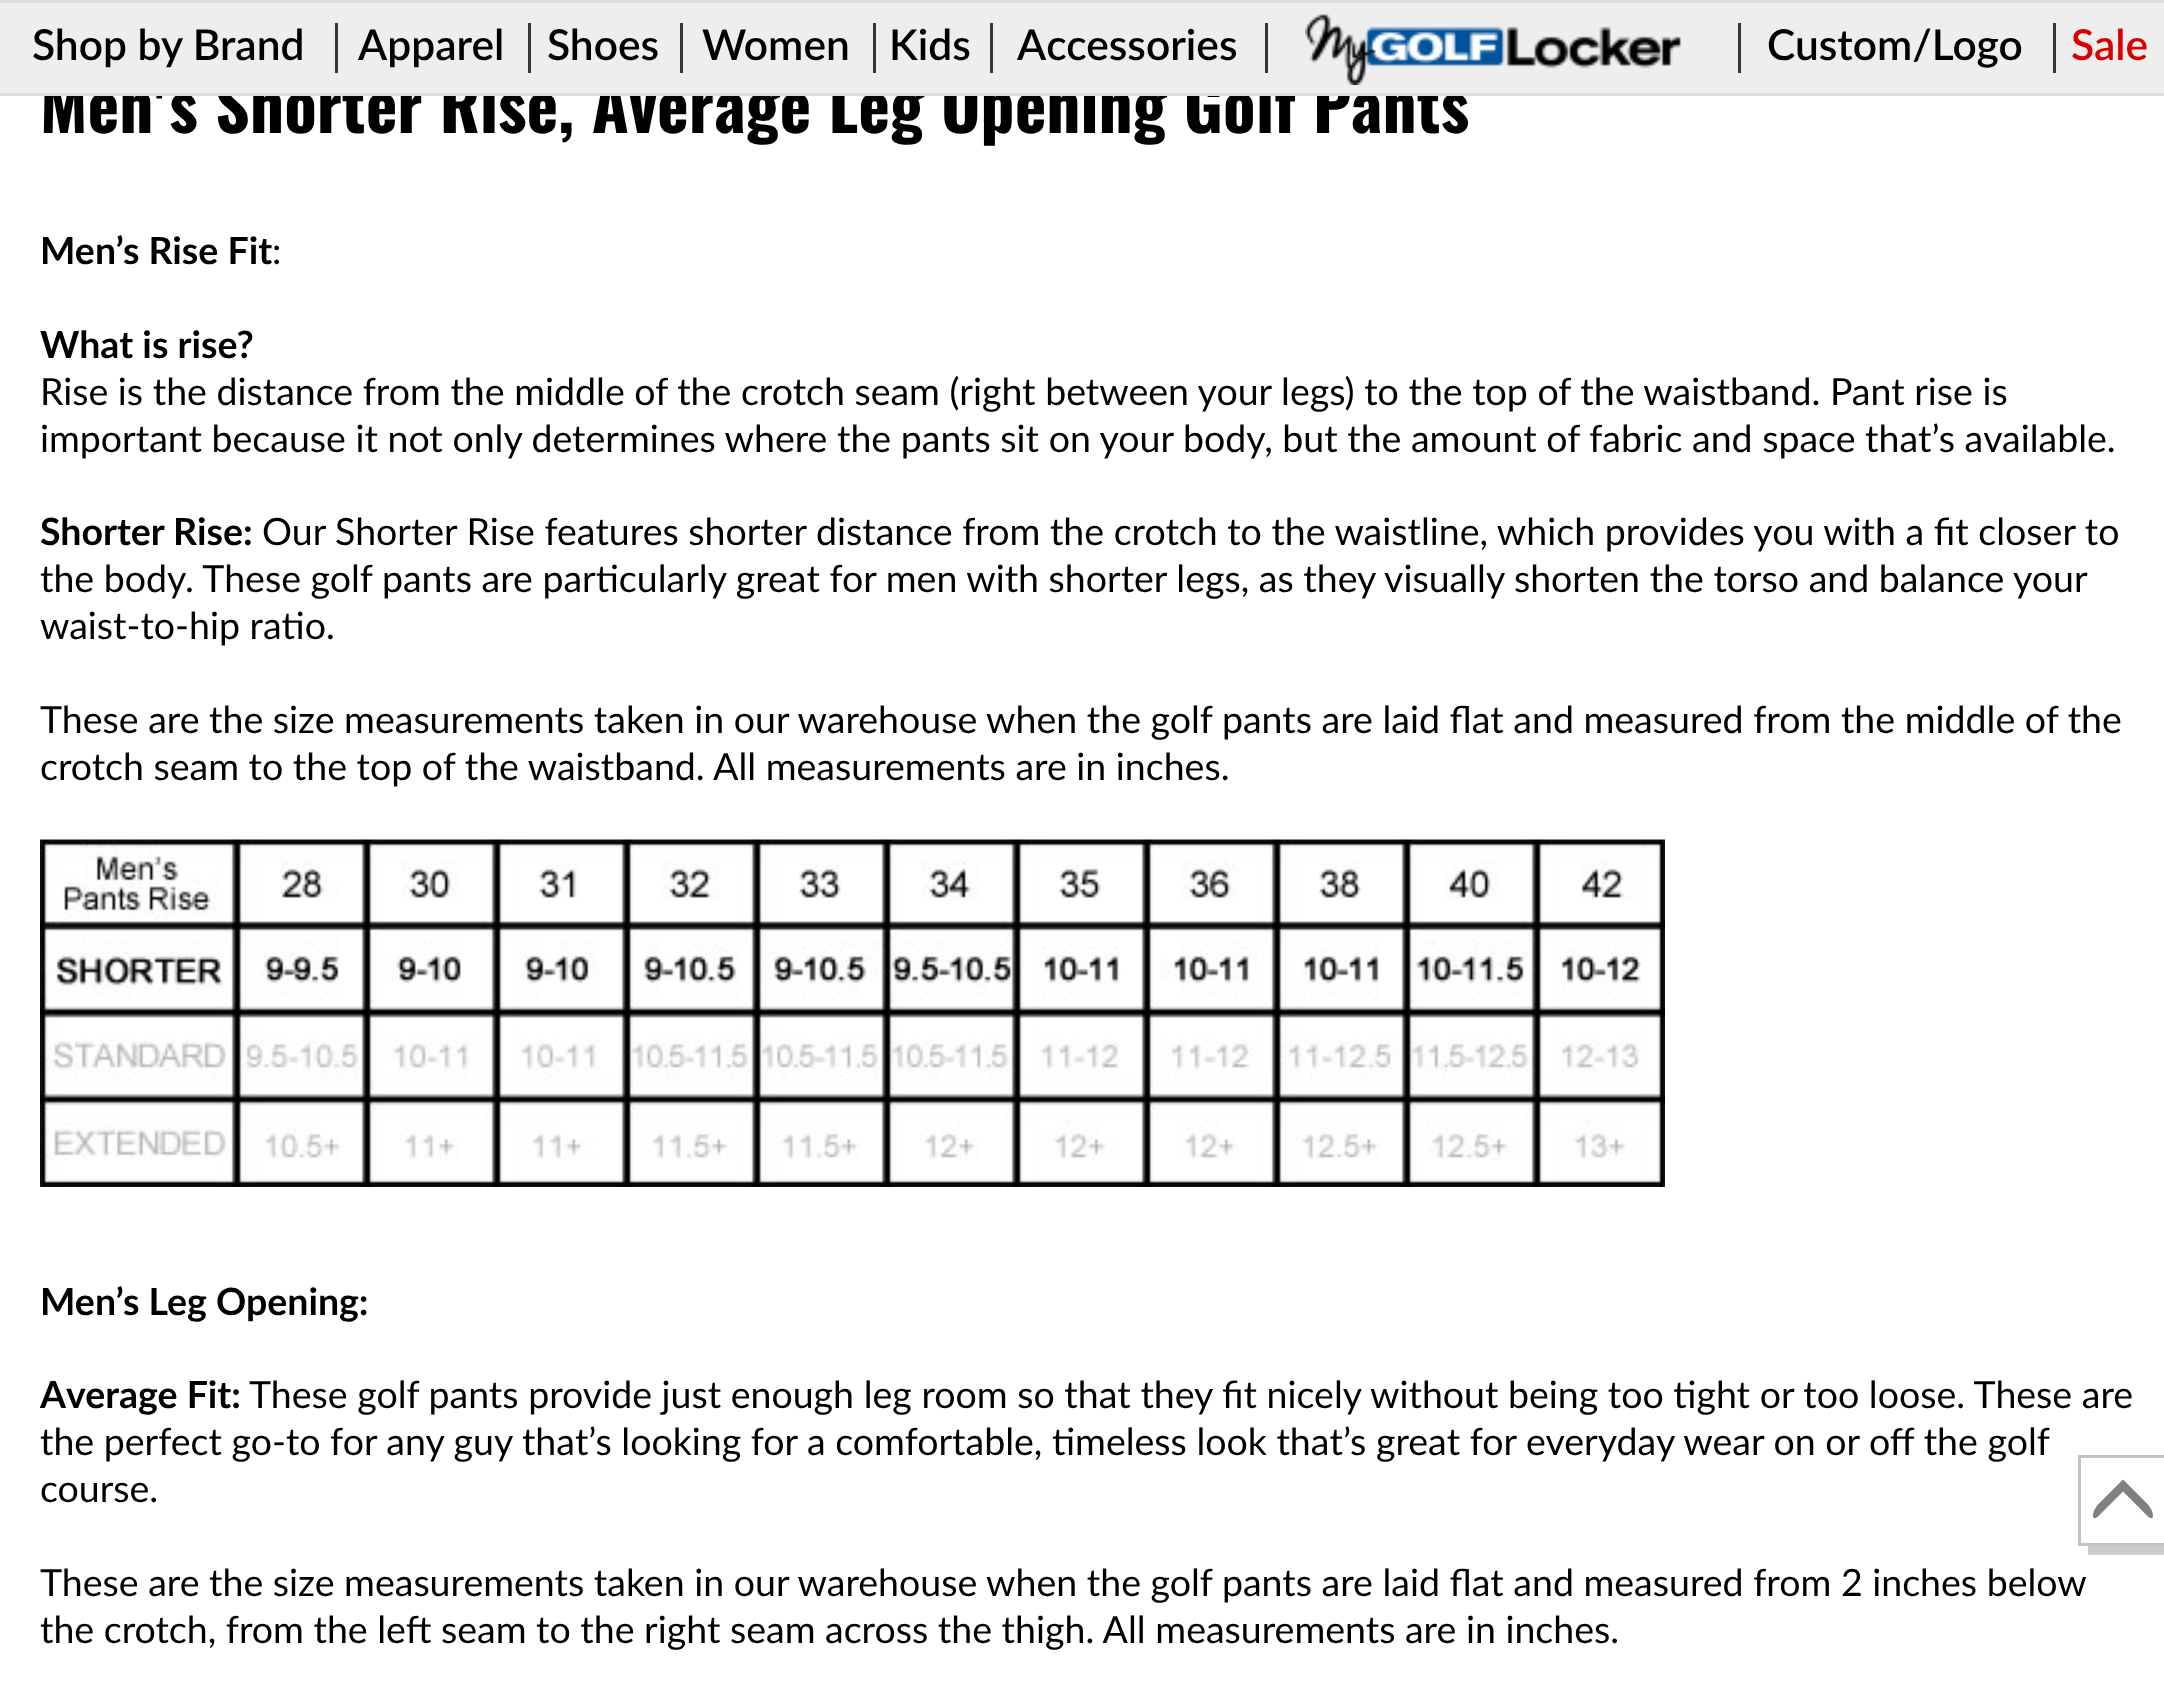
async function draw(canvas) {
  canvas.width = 2164
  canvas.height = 1694
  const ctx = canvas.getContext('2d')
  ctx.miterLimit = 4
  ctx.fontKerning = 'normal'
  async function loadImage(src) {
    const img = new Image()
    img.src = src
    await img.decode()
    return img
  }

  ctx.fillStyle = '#fff'
  ctx.fillRect(0, 0, 2164, 1694)
  ctx.font = 'bold 67.5px Oswald'
  ctx.fillStyle = '#000'
  ctx.fillText('Men\'s Shorter Rise, Average Leg Opening Golf Pants', 40, 133)
  ctx.fillStyle = '#eee'
  ctx.fillRect(0, 3, 2164, 90)
  ctx.fillStyle = '#ddd'
  ctx.fillRect(0, 0, 2164, 3)
  ctx.fillRect(0, 93, 2164, 3)
  ctx.font = '600 42.5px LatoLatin'
  ctx.fillStyle = '#000'
  ctx.fillText('Shop by Brand', 32, 60)
  ctx.fillStyle = '#363636'
  ctx.fillRect(335, 23, 3, 50)
  ctx.fillStyle = '#000'
  ctx.fillText('Apparel', 358, 60)
  ctx.fillStyle = '#363636'
  ctx.fillRect(528, 23, 3, 50)
  ctx.fillStyle = '#000'
  ctx.fillText('Shoes', 547, 60)
  ctx.fillStyle = '#363636'
  ctx.fillRect(680, 23, 3, 50)
  ctx.fillStyle = '#000'
  ctx.fillText('Women', 702, 60)
  ctx.fillStyle = '#363636'
  ctx.fillRect(873, 23, 3, 50)
  ctx.fillStyle = '#000'
  ctx.fillText('Kids', 889, 60)
  ctx.fillStyle = '#363636'
  ctx.fillRect(990, 23, 3, 50)
  ctx.fillStyle = '#000'
  ctx.fillText('Accessories', 1017, 60)
  ctx.fillStyle = '#363636'
  ctx.fillRect(1265, 23, 3, 50)
  ctx.drawImage(await loadImage('image0.png'), 1305, 14, 376, 71)
  ctx.fillRect(1738, 23, 3, 50)
  ctx.fillStyle = '#000'
  ctx.fillText('Custom/Logo', 1767, 60)
  ctx.fillStyle = '#363636'
  ctx.fillRect(2053, 23, 3, 50)
  ctx.fillStyle = '#db0000'
  ctx.fillText('Sale', 2071, 60)
  ctx.font = 'bold 37.5px LatoLatin'
  ctx.fillStyle = '#000'
  ctx.fillText('Men’s Rise Fit', 40, 264)
  ctx.font = '37.5px LatoLatin'
  ctx.fillText(':', 272, 264)
  ctx.font = 'bold 37.5px LatoLatin'
  ctx.fillText('What is rise?', 40, 358)
  ctx.font = '37.5px LatoLatin'
  ctx.fillText('Rise is the distance from the middle of the crotch seam (right between your legs) to the top of the waistband. Pant rise is', 40, 405)
  ctx.fillText('important because it not only determines where the pants sit on your body, but the amount of fabric and space that’s available.', 40, 452)
  ctx.font = 'bold 37.5px LatoLatin'
  ctx.fillText('Shorter Rise:', 40, 545)
  ctx.font = '37.5px LatoLatin'
  ctx.fillText('Our Shorter Rise features shorter distance from the crotch to the waistline, which provides you with a fit closer to', 262, 545)
  ctx.fillText('the body. These golf pants are particularly great for men with shorter legs, as they visually shorten the torso and balance your', 40, 592)
  ctx.fillText('waist-to-hip ratio.', 40, 639)
  ctx.fillText('These are the size measurements taken in our warehouse when the golf pants are laid flat and measured from the middle of the', 40, 733)
  ctx.fillText('crotch seam to the top of the waistband. All measurements are in inches.', 40, 780)
  ctx.drawImage(await loadImage('image1.png'), 40, 839, 1625, 348)
  ctx.font = 'bold 37.5px LatoLatin'
  ctx.fillText('Men’s Leg Opening:', 40, 1315)
  ctx.fillText('Average Fit:', 40, 1408)
  ctx.font = '37.5px LatoLatin'
  ctx.fillText('These golf pants provide just enough leg room so that they fit nicely without being too tight or too loose. These are', 249, 1408)
  ctx.fillText('the perfect go-to for any guy that’s looking for a comfortable, timeless look that’s great for everyday wear on or off the golf', 40, 1455)
  ctx.fillText('course.', 40, 1502)
  ctx.fillText('These are the size measurements taken in our warehouse when the golf pants are laid flat and measured from 2 inches below', 40, 1596)
  ctx.fillText('the crotch, from the left seam to the right seam across the thigh. All measurements are in inches.', 40, 1643)
  ctx.fillStyle = '#ccc'
  ctx.beginPath()
  ctx.moveTo(2088, 1545)
  ctx.lineTo(2088, 1555)
  ctx.lineTo(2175, 1555)
  ctx.lineTo(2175, 1465)
  ctx.lineTo(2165, 1465)
  ctx.lineTo(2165, 1545)
  ctx.closePath()
  ctx.fill()
  ctx.fillStyle = '#c4c4c4'
  ctx.fillRect(2078, 1455, 86, 3)
  ctx.fillRect(2078, 1543, 86, 3)
  ctx.fillRect(2078, 1455, 3, 90)
  ctx.fillStyle = '#808080'
  ctx.beginPath()
  ctx.moveTo(2099, 1503.5)
  ctx.lineTo(2123, 1479.5)
  ctx.lineTo(2123, 1491.5)
  ctx.lineTo(2099, 1515.5)
  ctx.bezierCurveTo(2095.5, 1519, 2093, 1519, 2093, 1515.5)
  ctx.bezierCurveTo(2093, 1512, 2095.5, 1507, 2099, 1503.5)
  ctx.closePath()
  ctx.moveTo(2123, 1479.5)
  ctx.lineTo(2147, 1503.5)
  ctx.bezierCurveTo(2150.5, 1507, 2153, 1512, 2153, 1515.5)
  ctx.bezierCurveTo(2153, 1519, 2150.5, 1519, 2147, 1515.5)
  ctx.lineTo(2123, 1491.5)
  ctx.closePath()
  ctx.fill()
}

draw(document.querySelector('canvas'))
